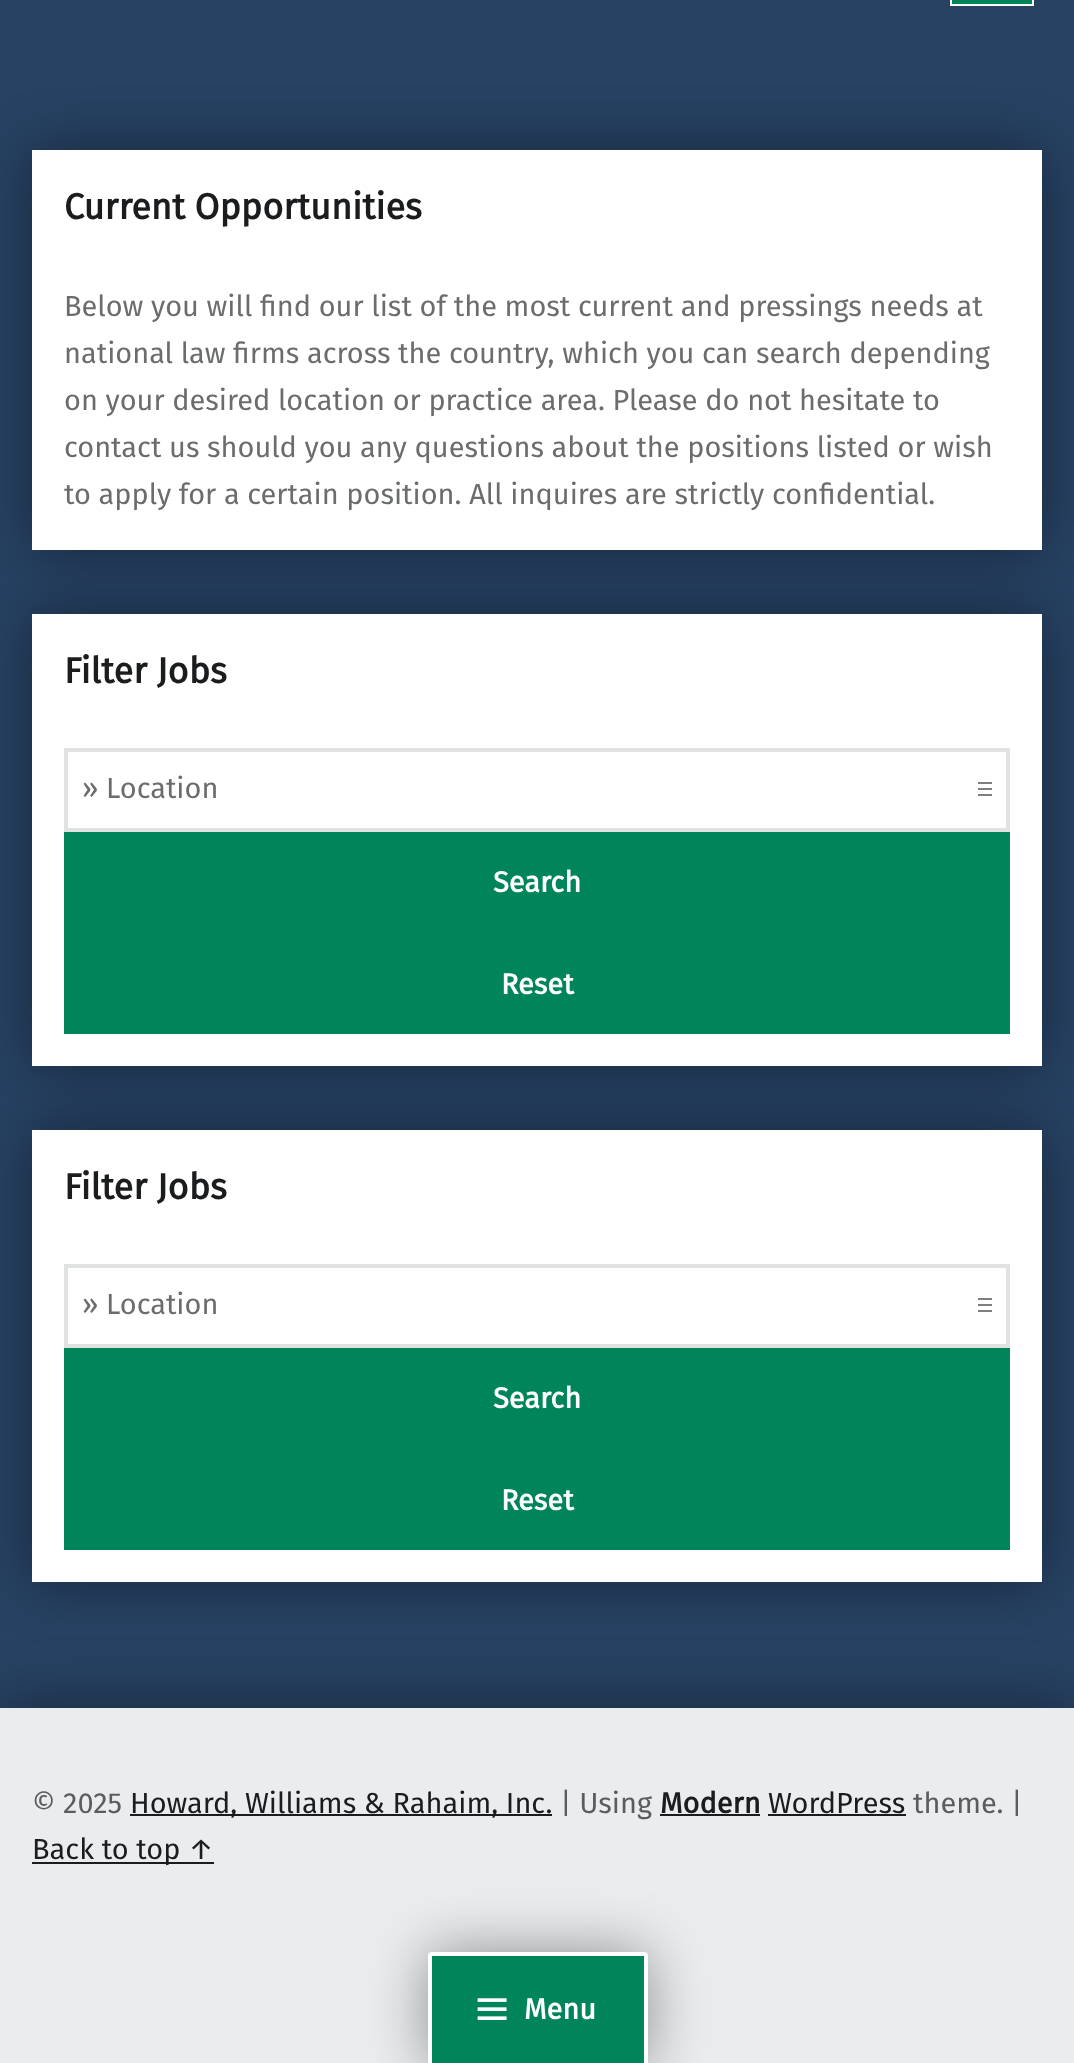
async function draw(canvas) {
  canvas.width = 1074
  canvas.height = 2063
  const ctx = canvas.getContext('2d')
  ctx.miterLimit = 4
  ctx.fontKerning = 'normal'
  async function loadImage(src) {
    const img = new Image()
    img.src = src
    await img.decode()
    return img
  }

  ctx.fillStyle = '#274263'
  ctx.fillRect(0, 0, 1074, 2063)
  ctx.fillStyle = '#00855b'
  ctx.beginPath()
  ctx.rect(951, -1, 82, 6)
  ctx.fill()
  ctx.strokeStyle = '#fff'
  ctx.lineWidth = 2
  ctx.stroke()
  ctx.fillStyle = '#00000066'
  ctx.filter = 'blur(29px)'
  ctx.beginPath()
  ctx.rect(32, 150, 1010, 400)
  ctx.fill()
  ctx.filter = 'none'
  ctx.fillStyle = '#fff'
  ctx.fillRect(32, 150, 1010, 400)
  ctx.font = 'bold 36px Fira Sans'
  ctx.fillStyle = '#1a1c1e'
  ctx.fillText('Current Opportunities', 64, 219)
  ctx.font = '28.95px Fira Sans'
  ctx.fillStyle = '#6a6c6e'
  ctx.fillText('Below you will find our list of the most current and pressings needs at', 64, 316)
  ctx.fillText('national law firms across the country, which you can search depending', 64, 363)
  ctx.fillText('on your desired location or practice area. Please do not hesitate to', 64, 410)
  ctx.fillText('contact us should you any questions about the positions listed or wish', 64, 457)
  ctx.fillText('to apply for a certain position. All inquires are strictly confidential.', 64, 504)
  ctx.fillStyle = '#00000066'
  ctx.filter = 'blur(29px)'
  ctx.beginPath()
  ctx.rect(32, 614, 1010, 452)
  ctx.fill()
  ctx.filter = 'none'
  ctx.fillStyle = '#fff'
  ctx.fillRect(32, 614, 1010, 452)
  ctx.font = 'bold 36px Fira Sans'
  ctx.fillStyle = '#1a1c1e'
  ctx.fillText('Filter Jobs', 64, 683)
  ctx.drawImage(await loadImage('image0.png'), 978, 782, 14, 14)
  ctx.strokeStyle = '#e1e2e2'
  ctx.lineWidth = 4
  ctx.strokeRect(66, 750, 942, 80)
  ctx.font = '28.95px Fira Sans'
  ctx.fillStyle = '#6a6c6e'
  ctx.fillText('» Location', 82, 798)
  ctx.fillStyle = '#00855b'
  ctx.fillRect(64, 832, 946, 202)
  ctx.font = 'bold 28.95px Fira Sans'
  ctx.fillStyle = '#fff'
  ctx.fillText('Search', 493, 892)
  ctx.fillText('Reset', 501, 994)
  ctx.fillStyle = '#00000066'
  ctx.filter = 'blur(29px)'
  ctx.beginPath()
  ctx.rect(32, 1130, 1010, 452)
  ctx.fill()
  ctx.filter = 'none'
  ctx.fillStyle = '#fff'
  ctx.fillRect(32, 1130, 1010, 452)
  ctx.font = 'bold 36px Fira Sans'
  ctx.fillStyle = '#1a1c1e'
  ctx.fillText('Filter Jobs', 64, 1199)
  ctx.drawImage(await loadImage('image0.png'), 978, 1298, 14, 14)
  ctx.strokeRect(66, 1266, 942, 80)
  ctx.font = '28.95px Fira Sans'
  ctx.fillStyle = '#6a6c6e'
  ctx.fillText('» Location', 82, 1314)
  ctx.fillStyle = '#00855b'
  ctx.fillRect(64, 1348, 946, 202)
  ctx.font = 'bold 28.95px Fira Sans'
  ctx.fillStyle = '#fff'
  ctx.fillText('Search', 493, 1408)
  ctx.fillText('Reset', 501, 1510)
  ctx.fillStyle = '#00000066'
  ctx.filter = 'blur(32px)'
  ctx.beginPath()
  ctx.rect(0, 1708, 1074, 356)
  ctx.fill()
  ctx.filter = 'none'
  ctx.fillStyle = '#eaecee'
  ctx.fillRect(0, 1708, 1074, 355)
  ctx.font = '28.95px Fira Sans'
  ctx.fillStyle = '#5a5c5e'
  ctx.fillText('© 2025', 32, 1813)
  ctx.fillStyle = '#1a1c1e'
  ctx.fillRect(130, 1814, 422, 2)
  ctx.fillText('Howard, Williams & Rahaim, Inc.', 130, 1813)
  ctx.fillStyle = '#5a5c5e'
  ctx.fillText('| Using', 560, 1813)
  ctx.font = 'bold 28.95px Fira Sans'
  ctx.fillStyle = '#1a1c1e'
  ctx.fillText('Modern', 660, 1813)
  ctx.fillRect(660, 1814, 100, 2)
  ctx.font = '28.95px Fira Sans'
  ctx.fillText('WordPress', 768, 1813)
  ctx.fillRect(768, 1814, 138, 2)
  ctx.fillStyle = '#5a5c5e'
  ctx.fillText('theme. |', 913, 1813)
  ctx.fillStyle = '#1a1c1e'
  ctx.fillRect(32, 1862, 182, 2)
  ctx.fillText('Back to top ↑', 32, 1859)
  ctx.fillStyle = '#00000066'
  ctx.filter = 'blur(29px)'
  ctx.beginPath()
  ctx.roundRect(428, 1952, 220, 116, 4)
  ctx.fill()
  ctx.filter = 'none'
  ctx.fillStyle = '#00855b'
  ctx.beginPath()
  ctx.roundRect(430, 1954, 216, 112, 2)
  ctx.fill()
  ctx.strokeStyle = '#fff'
  ctx.stroke()
  ctx.drawImage(await loadImage('image1.png'), 477, 1998, 30, 22)
  ctx.font = 'bold 28.95px Fira Sans'
  ctx.fillStyle = '#fff'
  ctx.fillText('Menu', 524, 2019)
}

draw(document.querySelector('canvas'))
